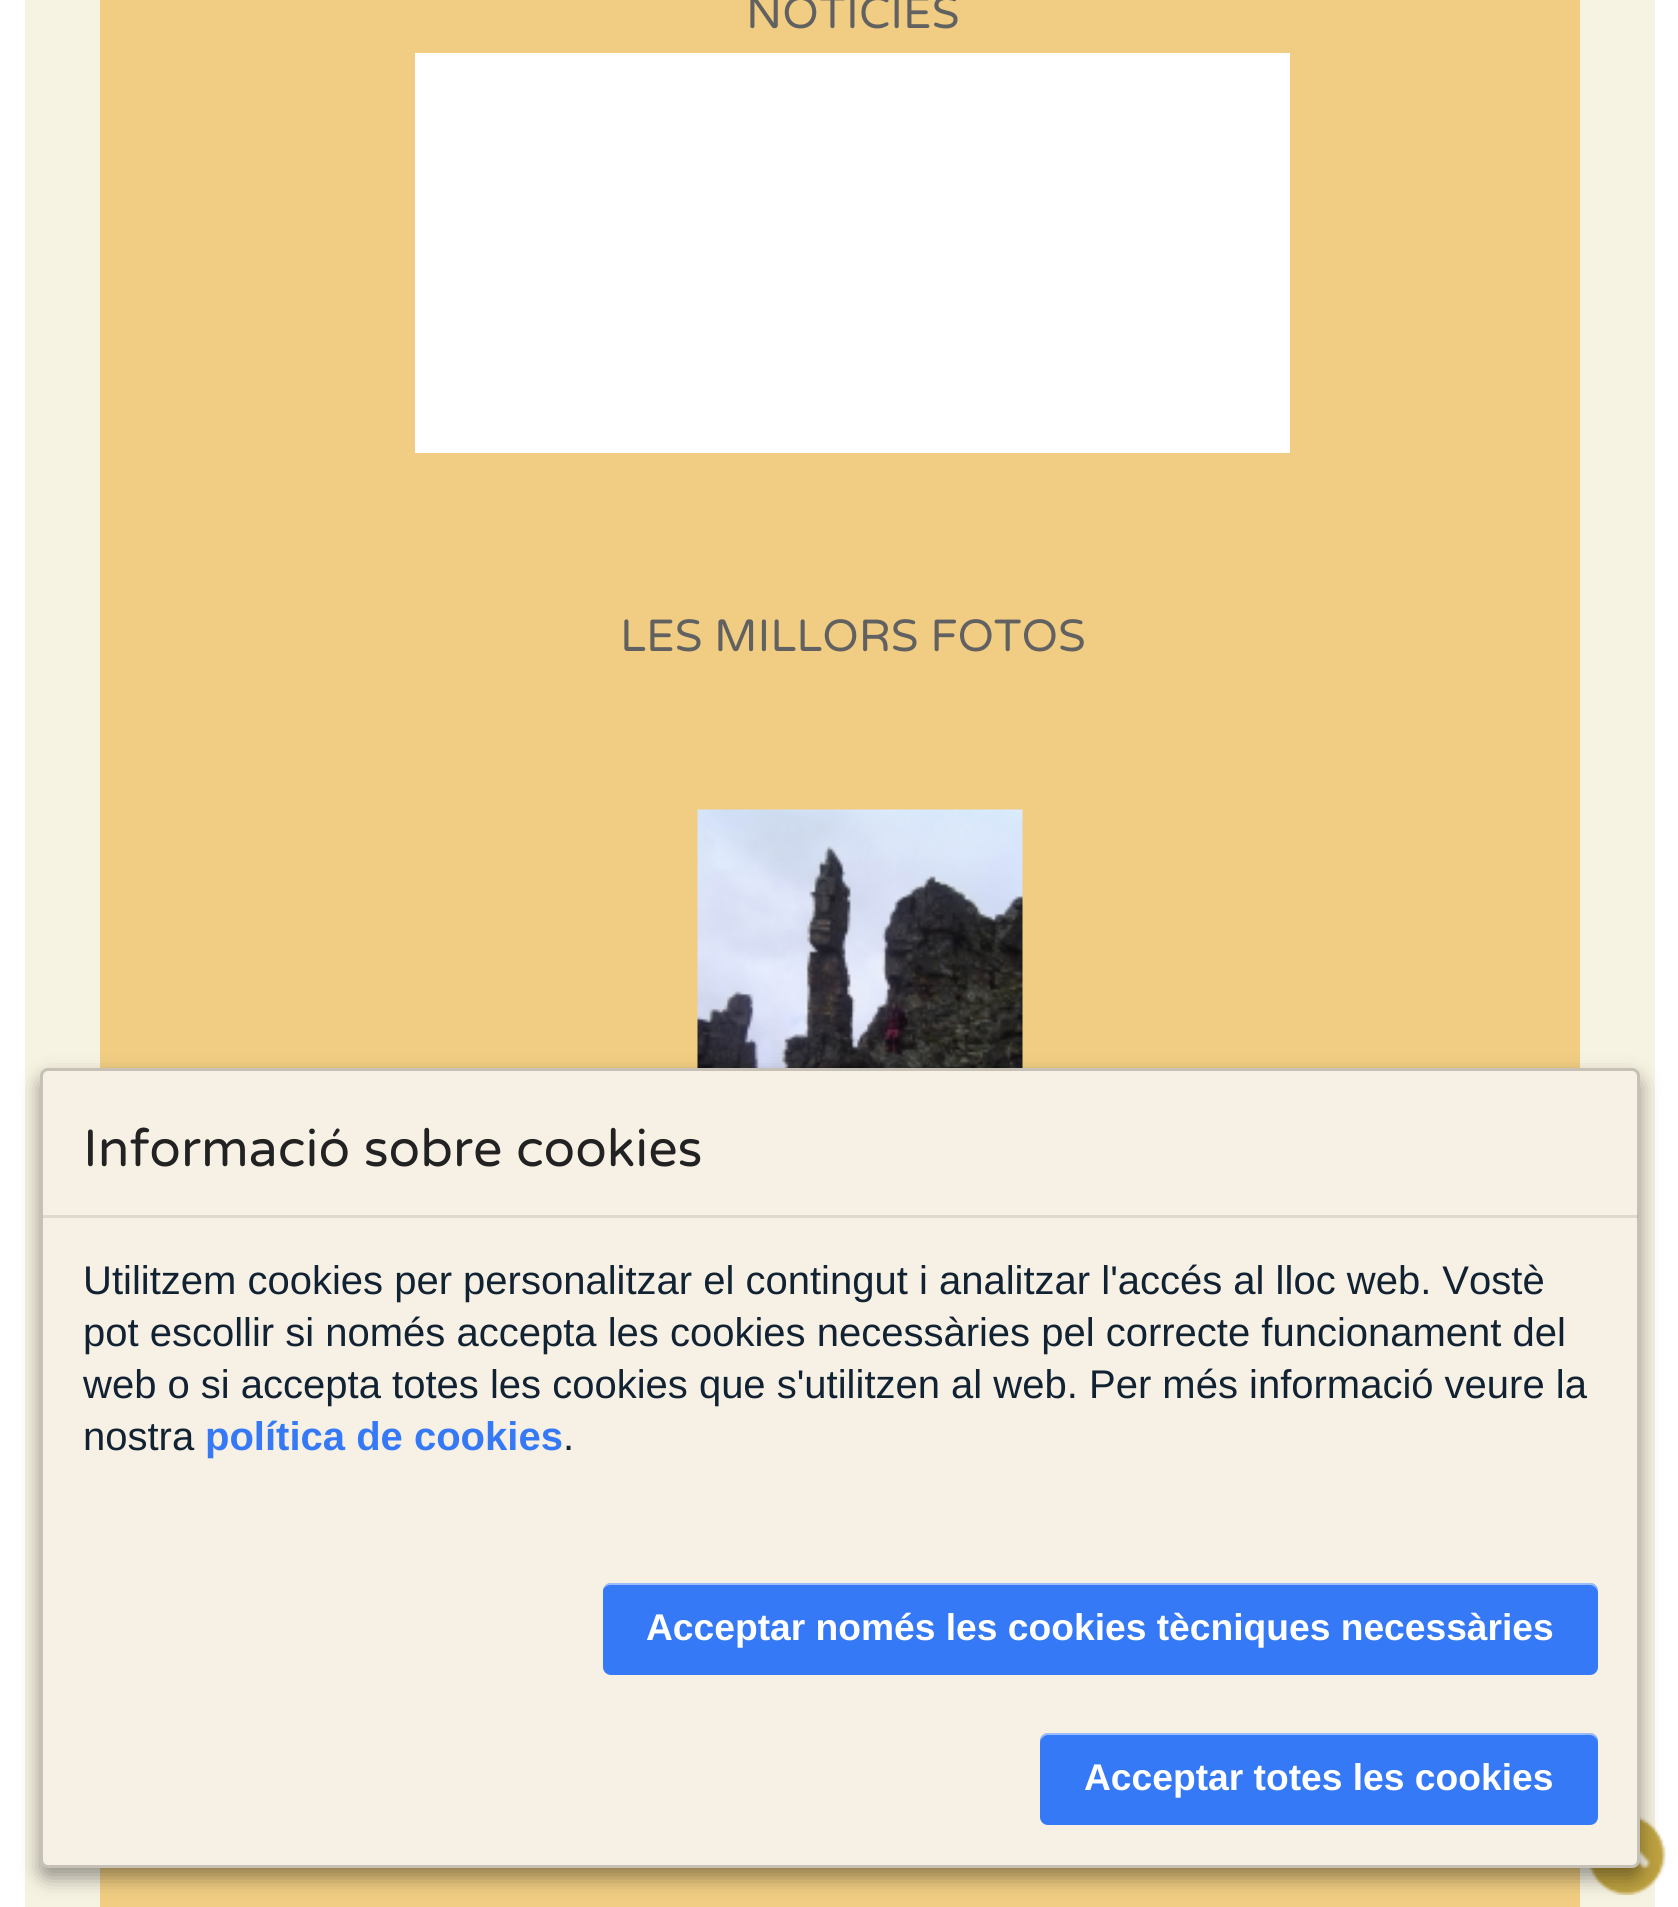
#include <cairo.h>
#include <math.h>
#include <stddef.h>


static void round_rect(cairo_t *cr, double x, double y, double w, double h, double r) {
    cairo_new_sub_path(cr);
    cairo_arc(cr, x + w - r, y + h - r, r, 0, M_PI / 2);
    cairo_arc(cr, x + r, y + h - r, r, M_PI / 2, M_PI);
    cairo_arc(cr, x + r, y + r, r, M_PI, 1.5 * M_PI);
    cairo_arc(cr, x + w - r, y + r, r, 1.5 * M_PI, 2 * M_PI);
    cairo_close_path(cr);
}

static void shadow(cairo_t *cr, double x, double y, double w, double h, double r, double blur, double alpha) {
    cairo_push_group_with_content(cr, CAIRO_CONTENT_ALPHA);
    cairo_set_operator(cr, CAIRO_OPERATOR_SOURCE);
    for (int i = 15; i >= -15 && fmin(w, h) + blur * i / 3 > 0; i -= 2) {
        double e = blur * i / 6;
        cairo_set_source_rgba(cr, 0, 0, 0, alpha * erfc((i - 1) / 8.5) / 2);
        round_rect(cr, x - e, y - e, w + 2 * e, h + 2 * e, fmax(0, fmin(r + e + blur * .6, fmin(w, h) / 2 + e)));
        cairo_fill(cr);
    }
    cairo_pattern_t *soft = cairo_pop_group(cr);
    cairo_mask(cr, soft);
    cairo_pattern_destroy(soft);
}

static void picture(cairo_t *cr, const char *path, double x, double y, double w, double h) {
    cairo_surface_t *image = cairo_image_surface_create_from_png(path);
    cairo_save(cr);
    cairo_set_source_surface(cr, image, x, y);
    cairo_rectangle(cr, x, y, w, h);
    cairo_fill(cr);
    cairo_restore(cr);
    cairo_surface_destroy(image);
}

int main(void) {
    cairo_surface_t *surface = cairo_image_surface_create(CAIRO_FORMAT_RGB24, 1678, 1907);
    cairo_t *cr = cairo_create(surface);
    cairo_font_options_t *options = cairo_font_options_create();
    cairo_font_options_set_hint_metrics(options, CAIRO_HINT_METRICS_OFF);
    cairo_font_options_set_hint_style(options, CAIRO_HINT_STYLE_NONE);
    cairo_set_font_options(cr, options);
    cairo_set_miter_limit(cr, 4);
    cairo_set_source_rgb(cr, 1, 1, 1);
    cairo_paint(cr);
    cairo_set_source_rgb(cr, 0.965, 0.953, 0.886);
    cairo_rectangle(cr, 25, 0, 1630, 1907);
    cairo_fill(cr);
    cairo_set_source_rgb(cr, 0.941, 0.804, 0.51);
    cairo_rectangle(cr, 100, 0, 1480, 1907);
    cairo_fill(cr);
    cairo_select_font_face(cr, "Varela Round", CAIRO_FONT_SLANT_NORMAL, CAIRO_FONT_WEIGHT_NORMAL);
    cairo_set_font_size(cr, 45);
    cairo_set_source_rgb(cr, 0.38, 0.38, 0.38);
    cairo_move_to(cr, 746, 28);
    cairo_show_text(cr, "NOTÍCIES");
    cairo_set_source_rgb(cr, 1, 1, 1);
    cairo_rectangle(cr, 415, 53, 875, 400);
    cairo_fill(cr);
    cairo_set_source_rgb(cr, 0.38, 0.38, 0.38);
    cairo_move_to(cr, 620, 651);
    cairo_show_text(cr, "LES MILLORS FOTOS");
    picture(cr, "img1.png", 697, 809, 326, 259);
    picture(cr, "img2.png", 1589, 1816, 77, 79);
    cairo_set_source_rgb(cr, 0, 0, 0);
    shadow(cr, 40, 1078, 1600, 800, 8, 10, 0.4);
    cairo_set_source_rgb(cr, 0.965, 0.941, 0.894);
    round_rect(cr, 40, 1068, 1600, 800, 8);
    cairo_fill(cr);
    round_rect(cr, 41.5, 1069.5, 1597, 797, 6.5);
    cairo_set_source_rgba(cr, 0, 0, 0, 0.2);
    cairo_set_line_width(cr, 3);
    cairo_stroke(cr);
    cairo_set_source_rgba(cr, 0, 0, 0, 0.1);
    cairo_rectangle(cr, 43, 1215, 1595, 3);
    cairo_fill(cr);
    cairo_set_font_size(cr, 52);
    cairo_set_source_rgb(cr, 0.133, 0.133, 0.133);
    cairo_move_to(cr, 83, 1166);
    cairo_show_text(cr, "Informació sobre cookies");
    cairo_select_font_face(cr, "Liberation Sans", CAIRO_FONT_SLANT_NORMAL, CAIRO_FONT_WEIGHT_NORMAL);
    cairo_set_font_size(cr, 40);
    cairo_set_source_rgb(cr, 0.067, 0.133, 0.2);
    cairo_move_to(cr, 83, 1294);
    cairo_show_text(cr, "Utilitzem cookies per personalitzar el contingut i analitzar l'accés al lloc web. Vostè");
    cairo_move_to(cr, 83, 1346);
    cairo_show_text(cr, "pot escollir si només accepta les cookies necessàries pel correcte funcionament del");
    cairo_move_to(cr, 83, 1398);
    cairo_show_text(cr, "web o si accepta totes les cookies que s'utilitzen al web. Per més informació veure la");
    cairo_move_to(cr, 83, 1450);
    cairo_show_text(cr, "nostra");
    cairo_select_font_face(cr, "Liberation Sans", CAIRO_FONT_SLANT_NORMAL, CAIRO_FONT_WEIGHT_BOLD);
    cairo_set_source_rgb(cr, 0.208, 0.475, 0.965);
    cairo_move_to(cr, 205, 1450);
    cairo_show_text(cr, "política de cookies");
    cairo_select_font_face(cr, "Liberation Sans", CAIRO_FONT_SLANT_NORMAL, CAIRO_FONT_WEIGHT_NORMAL);
    cairo_set_source_rgb(cr, 0.067, 0.133, 0.2);
    cairo_move_to(cr, 563, 1450);
    cairo_show_text(cr, ".");
    cairo_set_source_rgb(cr, 0.208, 0.475, 0.965);
    round_rect(cr, 603, 1583, 995, 92, 8);
    cairo_fill(cr);
    cairo_set_source_rgba(cr, 1, 1, 1, 0.5);
    cairo_new_path(cr);
    cairo_move_to(cr, 610, 1585);
    cairo_line_to(cr, 1590, 1585);
    cairo_curve_to(cr, 1594, 1585, 1598, 1589, 1598, 1593);
    cairo_line_to(cr, 1598, 1591);
    cairo_curve_to(cr, 1598, 1587, 1594, 1583, 1590, 1583);
    cairo_line_to(cr, 611, 1583);
    cairo_curve_to(cr, 607, 1583, 604, 1586, 603, 1589);
    cairo_curve_to(cr, 605, 1587, 607, 1585, 610, 1585);
    cairo_close_path(cr);
    cairo_fill(cr);
    cairo_select_font_face(cr, "Liberation Sans", CAIRO_FONT_SLANT_NORMAL, CAIRO_FONT_WEIGHT_BOLD);
    cairo_set_font_size(cr, 37.2);
    cairo_set_source_rgb(cr, 1, 1, 1);
    cairo_move_to(cr, 646, 1640);
    cairo_show_text(cr, "Acceptar només les cookies tècniques necessàries");
    cairo_set_source_rgb(cr, 0.208, 0.475, 0.965);
    round_rect(cr, 1040, 1733, 558, 92, 8);
    cairo_fill(cr);
    cairo_set_source_rgba(cr, 1, 1, 1, 0.5);
    cairo_new_path(cr);
    cairo_move_to(cr, 1048, 1735);
    cairo_line_to(cr, 1590, 1735);
    cairo_curve_to(cr, 1594, 1735, 1598, 1739, 1598, 1743);
    cairo_curve_to(cr, 1598, 1738, 1596, 1733, 1590, 1733);
    cairo_line_to(cr, 1048, 1733);
    cairo_curve_to(cr, 1042, 1733, 1040, 1738, 1040, 1743);
    cairo_curve_to(cr, 1040, 1739, 1044, 1735, 1048, 1735);
    cairo_close_path(cr);
    cairo_fill(cr);
    cairo_set_source_rgb(cr, 1, 1, 1);
    cairo_move_to(cr, 1084, 1790);
    cairo_show_text(cr, "Acceptar totes les cookies");
    cairo_surface_write_to_png(surface, "page.png");
    cairo_font_options_destroy(options);
    cairo_destroy(cr);
    cairo_surface_destroy(surface);
    return 0;
}
